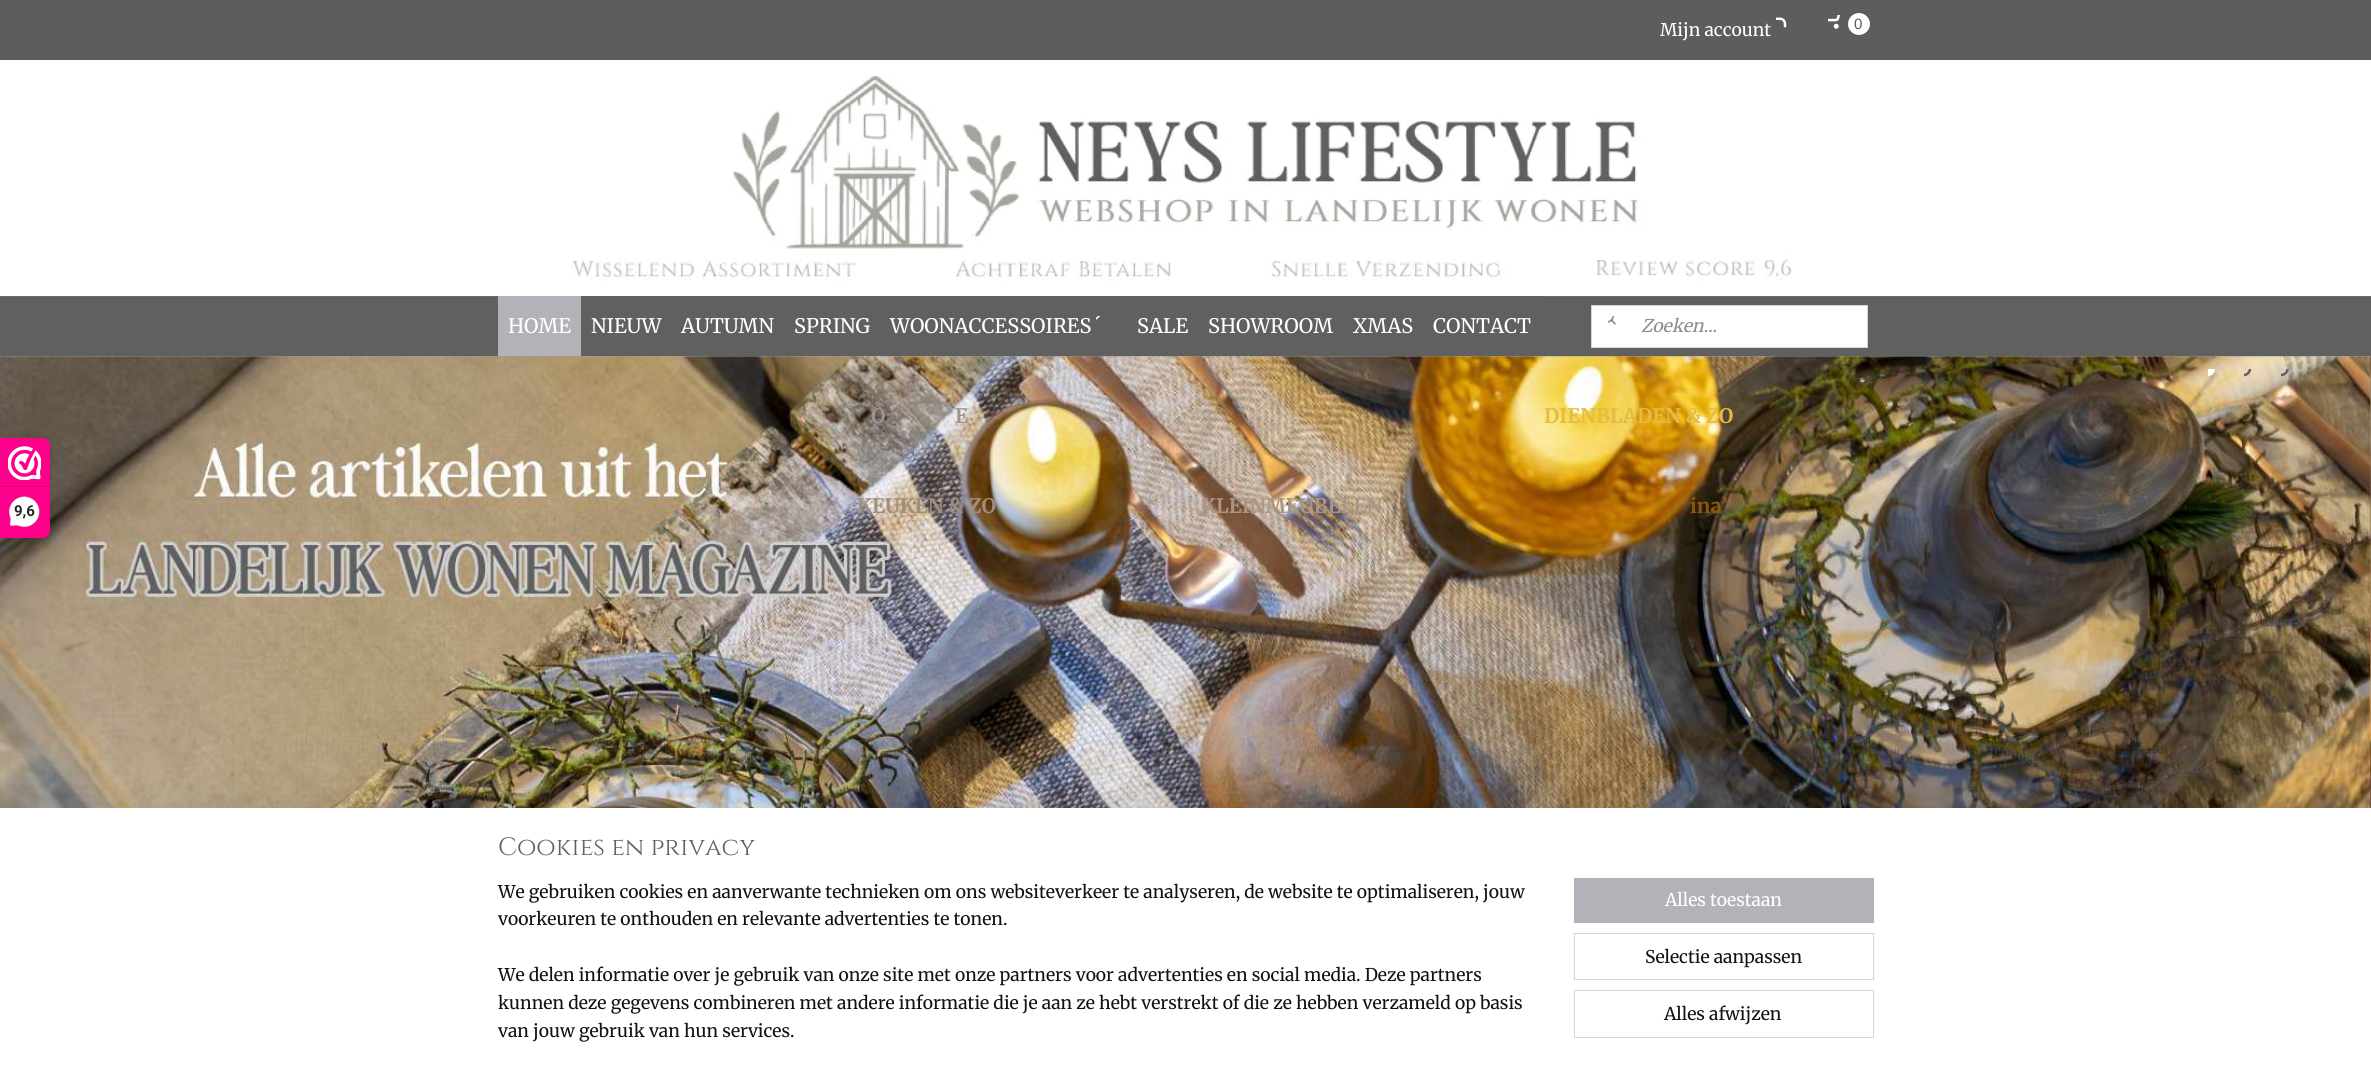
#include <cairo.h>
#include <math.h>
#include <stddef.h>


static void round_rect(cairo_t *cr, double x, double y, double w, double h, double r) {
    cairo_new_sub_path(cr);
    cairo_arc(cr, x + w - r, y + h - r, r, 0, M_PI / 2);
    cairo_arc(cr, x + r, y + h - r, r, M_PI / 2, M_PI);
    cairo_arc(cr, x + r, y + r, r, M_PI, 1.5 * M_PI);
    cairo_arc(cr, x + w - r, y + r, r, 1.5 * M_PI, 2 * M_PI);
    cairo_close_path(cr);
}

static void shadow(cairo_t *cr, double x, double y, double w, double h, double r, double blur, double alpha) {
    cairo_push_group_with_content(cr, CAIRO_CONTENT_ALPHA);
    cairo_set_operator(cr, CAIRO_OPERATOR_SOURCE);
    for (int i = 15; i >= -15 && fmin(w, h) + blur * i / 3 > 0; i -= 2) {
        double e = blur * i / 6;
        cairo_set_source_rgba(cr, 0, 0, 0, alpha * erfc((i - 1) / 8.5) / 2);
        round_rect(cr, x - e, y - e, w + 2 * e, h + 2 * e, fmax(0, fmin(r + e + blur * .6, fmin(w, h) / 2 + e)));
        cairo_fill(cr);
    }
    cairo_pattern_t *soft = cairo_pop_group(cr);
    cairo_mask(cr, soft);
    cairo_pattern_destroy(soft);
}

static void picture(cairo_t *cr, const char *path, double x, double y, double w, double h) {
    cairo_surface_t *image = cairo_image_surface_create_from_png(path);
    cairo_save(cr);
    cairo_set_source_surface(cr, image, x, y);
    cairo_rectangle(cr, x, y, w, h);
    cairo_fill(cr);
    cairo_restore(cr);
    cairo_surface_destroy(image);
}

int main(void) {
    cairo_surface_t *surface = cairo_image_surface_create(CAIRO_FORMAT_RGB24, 2371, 1074);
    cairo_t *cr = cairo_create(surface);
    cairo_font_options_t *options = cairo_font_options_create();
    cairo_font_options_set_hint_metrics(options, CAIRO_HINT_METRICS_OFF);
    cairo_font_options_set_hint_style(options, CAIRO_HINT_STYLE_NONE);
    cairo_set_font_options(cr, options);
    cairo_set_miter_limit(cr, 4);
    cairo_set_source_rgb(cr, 1, 1, 1);
    cairo_paint(cr);
    picture(cr, "img8.png", 0, 356, 2371, 1);
    picture(cr, "img9.png", 0, 356, 2371, 452);
    cairo_set_source_rgb(cr, 0, 0, 0);
    shadow(cr, 0, 440, 50, 100, 8, 6, 0.15);
    cairo_set_source_rgb(cr, 0.996, 0, 0.549);
    cairo_new_path(cr);
    cairo_move_to(cr, 0, 438);
    cairo_line_to(cr, 42, 438);
    cairo_curve_to(cr, 46.5, 438, 50, 441.5, 50, 446);
    cairo_line_to(cr, 50, 530);
    cairo_curve_to(cr, 50, 534.5, 46.5, 538, 42, 538);
    cairo_line_to(cr, 0, 538);
    cairo_close_path(cr);
    cairo_fill(cr);
    picture(cr, "img1.png", 8, 446, 33, 34);
    cairo_set_source_rgb(cr, 0.847, 0, 0.467);
    cairo_rectangle(cr, 0, 486, 49, 1);
    cairo_fill(cr);
    picture(cr, "img2.png", 9, 496, 31, 32);
    cairo_select_font_face(cr, "Roboto", CAIRO_FONT_SLANT_NORMAL, CAIRO_FONT_WEIGHT_BOLD);
    cairo_set_font_size(cr, 15);
    cairo_set_source_rgb(cr, 0.153, 0.149, 0.149);
    cairo_move_to(cr, 14, 516);
    cairo_show_text(cr, "9,6");
    cairo_set_source_rgb(cr, 0.361, 0.365, 0.373);
    cairo_rectangle(cr, 0, 0, 2371, 60);
    cairo_fill(cr);
    cairo_select_font_face(cr, "Merriweather", CAIRO_FONT_SLANT_NORMAL, CAIRO_FONT_WEIGHT_NORMAL);
    cairo_set_font_size(cr, 17.5);
    cairo_set_source_rgb(cr, 1, 1, 1);
    cairo_move_to(cr, 1660, 36);
    cairo_show_text(cr, "Mijn account");
    picture(cr, "img3.png", 1776, 17, 11, 11);
    picture(cr, "img4.png", 1828, 15, 12, 14);
    cairo_arc(cr, 1858.5, 23.5, 12, 0, 2 * M_PI);
    cairo_set_source_rgb(cr, 0.341, 0.357, 0.384);
    cairo_set_line_width(cr, 1);
    cairo_stroke(cr);
    cairo_set_source_rgb(cr, 1, 1, 1);
    cairo_arc(cr, 1859, 24, 11, 0, 2 * M_PI);
    cairo_fill(cr);
    cairo_select_font_face(cr, "Liberation Sans", CAIRO_FONT_SLANT_NORMAL, CAIRO_FONT_WEIGHT_NORMAL);
    cairo_set_font_size(cr, 15);
    cairo_set_source_rgb(cr, 0.341, 0.357, 0.384);
    cairo_move_to(cr, 1854, 29);
    cairo_show_text(cr, "0");
    cairo_set_source_rgb(cr, 0.376, 0.376, 0.376);
    cairo_rectangle(cr, 0, 296, 2371, 60);
    cairo_fill(cr);
    picture(cr, "img5.png", 0, 60, 2371, 237);
    cairo_select_font_face(cr, "Merriweather", CAIRO_FONT_SLANT_NORMAL, CAIRO_FONT_WEIGHT_NORMAL);
    cairo_set_font_size(cr, 20);
    cairo_set_source_rgb(cr, 1, 1, 1);
    cairo_move_to(cr, 890, 333);
    cairo_show_text(cr, "WOONACCESSOIRES");
    picture(cr, "img6.png", 1096, 316, 4, 4);
    cairo_select_font_face(cr, "Merriweather", CAIRO_FONT_SLANT_NORMAL, CAIRO_FONT_WEIGHT_BOLD);
    cairo_set_source_rgb(cr, 0.616, 0.58, 0.549);
    cairo_move_to(cr, 871, 423);
    cairo_show_text(cr, "O");
    cairo_move_to(cr, 955, 423);
    cairo_show_text(cr, "E");
    cairo_set_source_rgb(cr, 0.886, 0.737, 0.267);
    cairo_move_to(cr, 1544, 423);
    cairo_show_text(cr, "DIENBLADEN & ZO");
    cairo_set_source_rgb(cr, 0.62, 0.557, 0.502);
    cairo_move_to(cr, 857, 513);
    cairo_show_text(cr, "KEUKEN & ZO");
    cairo_set_source_rgb(cr, 0.667, 0.584, 0.518);
    cairo_move_to(cr, 1201, 513);
    cairo_show_text(cr, "KLEINMEUBELEN");
    cairo_set_source_rgb(cr, 0.553, 0.337, 0.043);
    cairo_move_to(cr, 1690, 513);
    cairo_show_text(cr, "ina’");
    cairo_set_source_rgb(cr, 0.694, 0.702, 0.722);
    cairo_rectangle(cr, 498, 296, 83, 60);
    cairo_fill(cr);
    cairo_select_font_face(cr, "Merriweather", CAIRO_FONT_SLANT_NORMAL, CAIRO_FONT_WEIGHT_NORMAL);
    cairo_set_source_rgb(cr, 1, 1, 1);
    cairo_move_to(cr, 508, 333);
    cairo_show_text(cr, "HOME");
    cairo_set_source_rgb(cr, 0.376, 0.376, 0.376);
    cairo_rectangle(cr, 581, 296, 960, 1);
    cairo_fill(cr);
    cairo_set_source_rgb(cr, 1, 1, 1);
    cairo_move_to(cr, 591, 333);
    cairo_show_text(cr, "NIEUW");
    cairo_move_to(cr, 681, 333);
    cairo_show_text(cr, "AUTUMN");
    cairo_move_to(cr, 794, 333);
    cairo_show_text(cr, "SPRING");
    cairo_move_to(cr, 1137, 333);
    cairo_show_text(cr, "SALE");
    cairo_move_to(cr, 1208, 333);
    cairo_show_text(cr, "SHOWROOM");
    cairo_move_to(cr, 1353, 333);
    cairo_show_text(cr, "XMAS");
    cairo_move_to(cr, 1433, 333);
    cairo_show_text(cr, "CONTACT");
    cairo_rectangle(cr, 1591.5, 305.5, 276, 42);
    cairo_fill_preserve(cr);
    cairo_set_source_rgb(cr, 0.827, 0.835, 0.851);
    cairo_stroke(cr);
    picture(cr, "img7.png", 1608, 316, 8, 9);
    cairo_select_font_face(cr, "Merriweather", CAIRO_FONT_SLANT_ITALIC, CAIRO_FONT_WEIGHT_NORMAL);
    cairo_set_font_size(cr, 17.5);
    cairo_set_source_rgb(cr, 0.537, 0.549, 0.569);
    cairo_move_to(cr, 1641, 332);
    cairo_show_text(cr, "Zoeken...");
    picture(cr, "img10.png", 2208, 369, 7, 8);
    picture(cr, "img11.png", 2244, 369, 8, 8);
    picture(cr, "img12.png", 2281, 369, 8, 8);
    picture(cr, "img13.png", 2318, 369, 7, 8);
    cairo_set_source_rgb(cr, 0, 0, 0);
    shadow(cr, 13, 820, 2346, 243, 0, 22.5, 0.2);
    cairo_set_source_rgb(cr, 1, 1, 1);
    cairo_rectangle(cr, 0, 808, 2371, 266);
    cairo_fill(cr);
    cairo_select_font_face(cr, "Cinzel", CAIRO_FONT_SLANT_NORMAL, CAIRO_FONT_WEIGHT_NORMAL);
    cairo_set_font_size(cr, 25);
    cairo_set_source_rgb(cr, 0.376, 0.376, 0.376);
    cairo_move_to(cr, 498, 855);
    cairo_show_text(cr, "Cookies en privacy");
    cairo_select_font_face(cr, "Merriweather", CAIRO_FONT_SLANT_NORMAL, CAIRO_FONT_WEIGHT_NORMAL);
    cairo_set_font_size(cr, 17.5);
    cairo_set_source_rgb(cr, 0.071, 0.071, 0.071);
    cairo_move_to(cr, 498, 898);
    cairo_show_text(cr, "We gebruiken cookies en aanverwante technieken om ons websiteverkeer te analyseren, de website te optimaliseren, jouw");
    cairo_move_to(cr, 498, 925);
    cairo_show_text(cr, "voorkeuren te onthouden en relevante advertenties te tonen.");
    cairo_move_to(cr, 498, 981);
    cairo_show_text(cr, "We delen informatie over je gebruik van onze site met onze partners voor advertenties en social media. Deze partners");
    cairo_move_to(cr, 498, 1009);
    cairo_show_text(cr, "kunnen deze gegevens combineren met andere informatie die je aan ze hebt verstrekt of die ze hebben verzameld op basis");
    cairo_move_to(cr, 498, 1037);
    cairo_show_text(cr, "van jouw gebruik van hun services.");
    cairo_set_source_rgb(cr, 0.694, 0.702, 0.722);
    cairo_rectangle(cr, 1574, 878, 300, 45);
    cairo_fill(cr);
    cairo_set_source_rgb(cr, 1, 1, 1);
    cairo_move_to(cr, 1665, 906);
    cairo_show_text(cr, "Alles toestaan");
    cairo_rectangle(cr, 1574.5, 933.5, 299, 46);
    cairo_set_source_rgb(cr, 0.839, 0.839, 0.839);
    cairo_stroke(cr);
    cairo_set_source_rgb(cr, 0.071, 0.071, 0.071);
    cairo_move_to(cr, 1645, 963);
    cairo_show_text(cr, "Selectie aanpassen");
    cairo_rectangle(cr, 1574.5, 990.5, 299, 47);
    cairo_set_source_rgb(cr, 0.839, 0.839, 0.839);
    cairo_stroke(cr);
    cairo_set_source_rgb(cr, 0.071, 0.071, 0.071);
    cairo_move_to(cr, 1664, 1020);
    cairo_show_text(cr, "Alles afwijzen");
    cairo_surface_write_to_png(surface, "page.png");
    cairo_font_options_destroy(options);
    cairo_destroy(cr);
    cairo_surface_destroy(surface);
    return 0;
}
